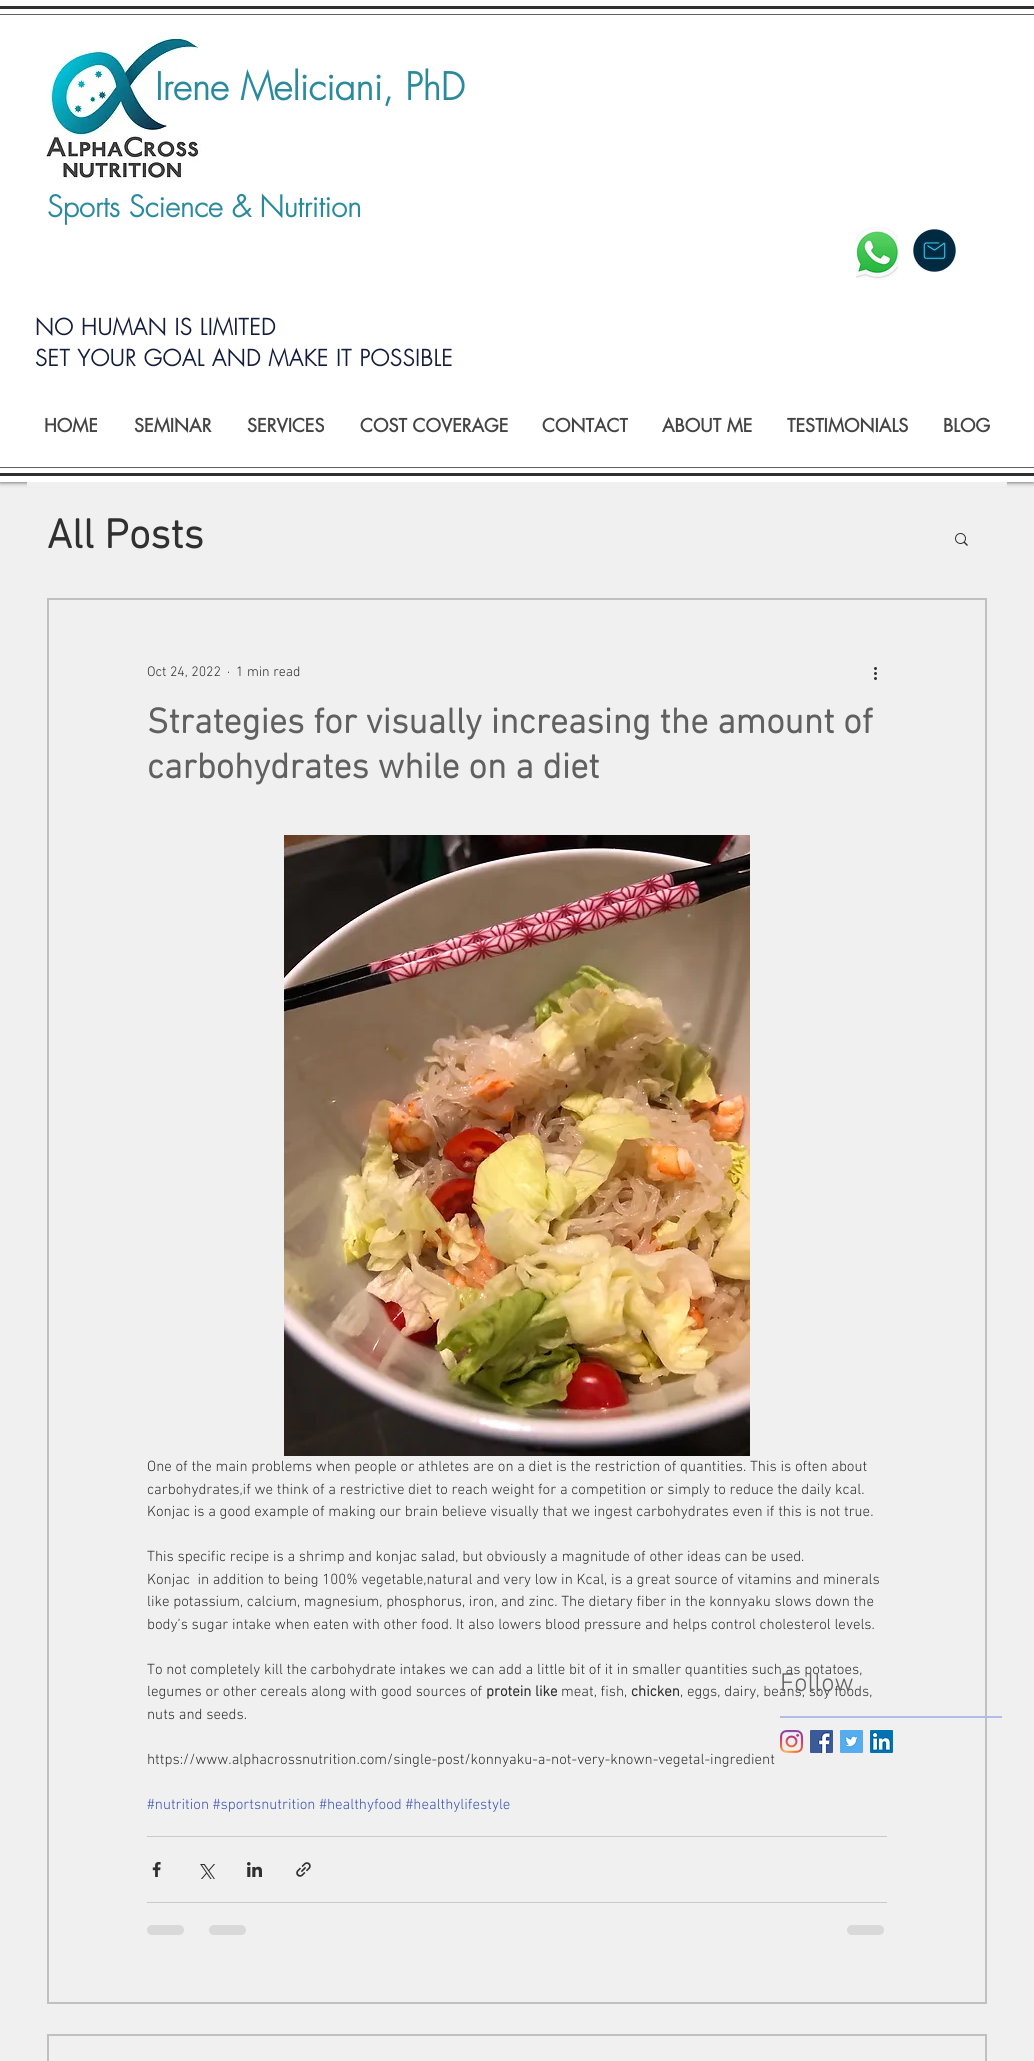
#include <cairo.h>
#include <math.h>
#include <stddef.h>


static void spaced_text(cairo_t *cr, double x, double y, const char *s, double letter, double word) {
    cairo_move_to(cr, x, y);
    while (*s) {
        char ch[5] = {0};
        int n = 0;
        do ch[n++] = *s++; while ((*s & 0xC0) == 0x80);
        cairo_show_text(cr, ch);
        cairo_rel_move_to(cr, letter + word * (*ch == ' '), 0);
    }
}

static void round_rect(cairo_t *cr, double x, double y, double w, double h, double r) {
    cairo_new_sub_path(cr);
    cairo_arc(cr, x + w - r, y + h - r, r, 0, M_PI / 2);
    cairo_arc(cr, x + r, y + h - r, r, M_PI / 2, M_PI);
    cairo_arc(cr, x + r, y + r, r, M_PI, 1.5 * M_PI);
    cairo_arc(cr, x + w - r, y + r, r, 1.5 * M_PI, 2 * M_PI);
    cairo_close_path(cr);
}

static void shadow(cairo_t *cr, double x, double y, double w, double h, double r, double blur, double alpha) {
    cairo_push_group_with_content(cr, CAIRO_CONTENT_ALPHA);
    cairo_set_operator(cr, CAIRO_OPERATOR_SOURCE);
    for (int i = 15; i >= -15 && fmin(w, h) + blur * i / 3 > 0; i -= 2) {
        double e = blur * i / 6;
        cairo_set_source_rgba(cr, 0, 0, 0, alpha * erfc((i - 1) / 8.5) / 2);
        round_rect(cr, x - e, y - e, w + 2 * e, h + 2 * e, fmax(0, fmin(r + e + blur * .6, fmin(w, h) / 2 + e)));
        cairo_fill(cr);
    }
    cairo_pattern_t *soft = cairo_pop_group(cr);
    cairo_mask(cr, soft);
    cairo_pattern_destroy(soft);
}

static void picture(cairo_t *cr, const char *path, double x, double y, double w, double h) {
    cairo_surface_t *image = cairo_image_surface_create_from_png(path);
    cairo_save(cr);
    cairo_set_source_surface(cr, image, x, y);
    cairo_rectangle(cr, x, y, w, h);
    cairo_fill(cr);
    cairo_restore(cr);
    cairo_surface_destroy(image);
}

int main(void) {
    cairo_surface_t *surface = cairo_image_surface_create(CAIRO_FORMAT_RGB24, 1034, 2061);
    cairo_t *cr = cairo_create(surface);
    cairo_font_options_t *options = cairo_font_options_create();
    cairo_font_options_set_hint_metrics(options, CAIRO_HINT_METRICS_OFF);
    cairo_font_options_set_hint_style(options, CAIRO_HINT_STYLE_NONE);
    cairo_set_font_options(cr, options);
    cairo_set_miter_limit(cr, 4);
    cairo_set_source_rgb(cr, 0.941, 0.941, 0.941);
    cairo_paint(cr);
    cairo_set_source_rgb(cr, 0, 0, 0);
    shadow(cr, 0, 0, 1034, 482, 0, 2.5, 0.7);
    cairo_set_source_rgb(cr, 1, 1, 1);
    cairo_rectangle(cr, 0, 0, 1034, 482);
    cairo_fill(cr);
    cairo_set_source_rgb(cr, 0.188, 0.188, 0.188);
    cairo_rectangle(cr, 0, 6, 1034, 3);
    cairo_fill(cr);
    cairo_rectangle(cr, 0, 473, 1034, 3);
    cairo_fill(cr);
    cairo_set_source_rgb(cr, 0.376, 0.376, 0.376);
    cairo_rectangle(cr, 0, 14, 1034, 1);
    cairo_fill(cr);
    cairo_rectangle(cr, 0, 467, 1034, 1);
    cairo_fill(cr);
    picture(cr, "img1.png", 46, 35, 155, 144);
    cairo_select_font_face(cr, "futura", CAIRO_FONT_SLANT_NORMAL, CAIRO_FONT_WEIGHT_BOLD);
    cairo_set_font_size(cr, 37);
    cairo_set_source_rgb(cr, 0.165, 0.541, 0.616);
    cairo_move_to(cr, 155, 100);
    cairo_show_text(cr, "Irene Meliciani, PhD");
    cairo_set_font_size(cr, 29);
    cairo_move_to(cr, 47, 217);
    cairo_show_text(cr, "Sports Science & Nutrition");
    picture(cr, "img2.png", 856, 227, 42, 53);
    picture(cr, "img3.png", 913, 229, 43, 43);
    cairo_set_font_size(cr, 22);
    cairo_set_source_rgb(cr, 0.075, 0.11, 0.235);
    spaced_text(cr, 35, 335, "NO HUMAN IS LIMITED", 0.65, 0);
    spaced_text(cr, 35, 366, "SET YOUR GOAL AND MAKE IT POSSIBLE", 0.65, 0);
    cairo_select_font_face(cr, "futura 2", CAIRO_FONT_SLANT_NORMAL, CAIRO_FONT_WEIGHT_BOLD);
    cairo_set_font_size(cr, 18);
    cairo_set_source_rgb(cr, 0.267, 0.267, 0.267);
    cairo_move_to(cr, 44, 432);
    cairo_show_text(cr, "HOME");
    cairo_move_to(cr, 134, 432);
    cairo_show_text(cr, "SEMINAR");
    cairo_move_to(cr, 247, 432);
    cairo_show_text(cr, "SERVICES");
    cairo_move_to(cr, 360, 432);
    cairo_show_text(cr, "COST COVERAGE");
    cairo_move_to(cr, 542, 432);
    cairo_show_text(cr, "CONTACT");
    cairo_move_to(cr, 662, 432);
    cairo_show_text(cr, "ABOUT ME");
    cairo_move_to(cr, 787, 432);
    cairo_show_text(cr, "TESTIMONIALS");
    cairo_move_to(cr, 943, 432);
    cairo_show_text(cr, "BLOG");
    cairo_set_source_rgb(cr, 0.941, 0.941, 0.941);
    cairo_rectangle(cr, 27, 482, 980, 5);
    cairo_fill(cr);
    cairo_select_font_face(cr, "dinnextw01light", CAIRO_FONT_SLANT_NORMAL, CAIRO_FONT_WEIGHT_BOLD);
    cairo_set_font_size(cr, 42);
    cairo_set_source_rgb(cr, 0.188, 0.188, 0.188);
    cairo_move_to(cr, 47, 548);
    cairo_show_text(cr, "All Posts");
    picture(cr, "img4.png", 955, 533, 13, 13);
    cairo_rectangle(cr, 48, 599, 938, 1404);
    cairo_set_source_rgb(cr, 0.753, 0.753, 0.753);
    cairo_stroke(cr);
    cairo_select_font_face(cr, "dinnextw01light Light", CAIRO_FONT_SLANT_NORMAL, CAIRO_FONT_WEIGHT_NORMAL);
    cairo_set_font_size(cr, 14);
    cairo_set_source_rgb(cr, 0.188, 0.188, 0.188);
    cairo_move_to(cr, 147, 676);
    cairo_show_text(cr, "Oct 24, 2022");
    cairo_move_to(cr, 227, 676);
    cairo_show_text(cr, "·");
    cairo_move_to(cr, 236, 676);
    cairo_show_text(cr, "1 min read");
    picture(cr, "img5.png", 874, 667, 3, 13);
    cairo_select_font_face(cr, "dinnextw01light", CAIRO_FONT_SLANT_NORMAL, CAIRO_FONT_WEIGHT_BOLD);
    cairo_set_font_size(cr, 36);
    cairo_set_source_rgb(cr, 0.376, 0.376, 0.376);
    cairo_move_to(cr, 147, 733);
    cairo_show_text(cr, "Strategies for visually increasing the amount of");
    cairo_move_to(cr, 147, 778);
    cairo_show_text(cr, "carbohydrates while on a diet");
    picture(cr, "img6.png", 284, 835, 466, 621);
    cairo_select_font_face(cr, "dinnextw01light Light", CAIRO_FONT_SLANT_NORMAL, CAIRO_FONT_WEIGHT_NORMAL);
    cairo_set_font_size(cr, 15);
    cairo_set_source_rgb(cr, 0.188, 0.188, 0.188);
    cairo_move_to(cr, 147, 1471);
    cairo_show_text(cr, "One of the main problems when people or athletes are on a diet is the restriction of quantities. This is often about");
    cairo_move_to(cr, 147, 1494);
    cairo_show_text(cr, "carbohydrates,if we think of a restrictive diet to reach weight for a competition or simply to reduce the daily kcal.");
    cairo_move_to(cr, 147, 1516);
    cairo_show_text(cr, "Konjac is a good example of making our brain believe visually that we ingest carbohydrates even if this is not true.");
    cairo_move_to(cr, 147, 1561);
    cairo_show_text(cr, "This specific recipe is a shrimp and konjac salad, but obviously a magnitude of other ideas can be used.");
    cairo_move_to(cr, 147, 1584);
    cairo_show_text(cr, "Konjac  in addition to being 100% vegetable,natural and very low in Kcal, is a great source of vitamins and minerals");
    cairo_move_to(cr, 147, 1606);
    cairo_show_text(cr, "like potassium, calcium, magnesium, phosphorus, iron, and zinc. The dietary fiber in the konnyaku slows down the");
    cairo_move_to(cr, 147, 1629);
    cairo_show_text(cr, "body’s sugar intake when eaten with other food. It also lowers blood pressure and helps control cholesterol levels.");
    cairo_move_to(cr, 147, 1674);
    cairo_show_text(cr, "To not completely kill the carbohydrate intakes we can add a little bit of it in smaller quantities such as potatoes,");
    cairo_move_to(cr, 147, 1696);
    cairo_show_text(cr, "legumes or other cereals along with good sources of");
    cairo_select_font_face(cr, "dinnextw01light", CAIRO_FONT_SLANT_NORMAL, CAIRO_FONT_WEIGHT_BOLD);
    cairo_move_to(cr, 486, 1696);
    cairo_show_text(cr, "protein like");
    cairo_select_font_face(cr, "dinnextw01light Light", CAIRO_FONT_SLANT_NORMAL, CAIRO_FONT_WEIGHT_NORMAL);
    cairo_move_to(cr, 561, 1696);
    cairo_show_text(cr, "meat, fish,");
    cairo_select_font_face(cr, "dinnextw01light", CAIRO_FONT_SLANT_NORMAL, CAIRO_FONT_WEIGHT_BOLD);
    cairo_move_to(cr, 631, 1696);
    cairo_show_text(cr, "chicken");
    cairo_select_font_face(cr, "dinnextw01light Light", CAIRO_FONT_SLANT_NORMAL, CAIRO_FONT_WEIGHT_NORMAL);
    cairo_move_to(cr, 680, 1696);
    cairo_show_text(cr, ", eggs, dairy, beans, soy foods,");
    cairo_move_to(cr, 147, 1719);
    cairo_show_text(cr, "nuts and seeds.");
    cairo_move_to(cr, 147, 1764);
    cairo_show_text(cr, "https://www.alphacrossnutrition.com/single-post/konnyaku-a-not-very-known-vegetal-ingredient");
    cairo_set_source_rgb(cr, 0.227, 0.329, 0.706);
    cairo_move_to(cr, 147, 1809);
    cairo_show_text(cr, "#nutrition #sportsnutrition #healthyfood #healthylifestyle");
    cairo_set_source_rgb(cr, 0.792, 0.792, 0.792);
    cairo_rectangle(cr, 147, 1836, 740, 1);
    cairo_fill(cr);
    picture(cr, "img7.png", 152, 1862, 9, 15);
    picture(cr, "img8.png", 200, 1864, 15, 15);
    picture(cr, "img9.png", 247, 1862, 15, 15);
    picture(cr, "img10.png", 296, 1862, 15, 15);
    cairo_rectangle(cr, 147, 1902, 740, 1);
    cairo_fill(cr);
    cairo_set_source_rgb(cr, 0.851, 0.851, 0.851);
    round_rect(cr, 147, 1925, 37, 10, 5);
    cairo_fill(cr);
    round_rect(cr, 209, 1925, 37, 10, 5);
    cairo_fill(cr);
    round_rect(cr, 847, 1925, 37, 10, 5);
    cairo_fill(cr);
    cairo_rectangle(cr, 48, 2035, 938, 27);
    cairo_set_source_rgb(cr, 0.753, 0.753, 0.753);
    cairo_stroke(cr);
    cairo_set_font_size(cr, 26);
    cairo_set_source_rgb(cr, 0.376, 0.376, 0.376);
    cairo_move_to(cr, 780, 1691);
    cairo_show_text(cr, "Follow");
    cairo_set_source_rgb(cr, 0.698, 0.741, 0.902);
    cairo_rectangle(cr, 780, 1716, 222, 2);
    cairo_fill(cr);
    picture(cr, "img11.png", 780, 1730, 23, 23);
    picture(cr, "img12.png", 810, 1730, 23, 23);
    picture(cr, "img13.png", 840, 1730, 23, 23);
    picture(cr, "img14.png", 870, 1730, 23, 23);
    cairo_surface_write_to_png(surface, "page.png");
    cairo_font_options_destroy(options);
    cairo_destroy(cr);
    cairo_surface_destroy(surface);
    return 0;
}
